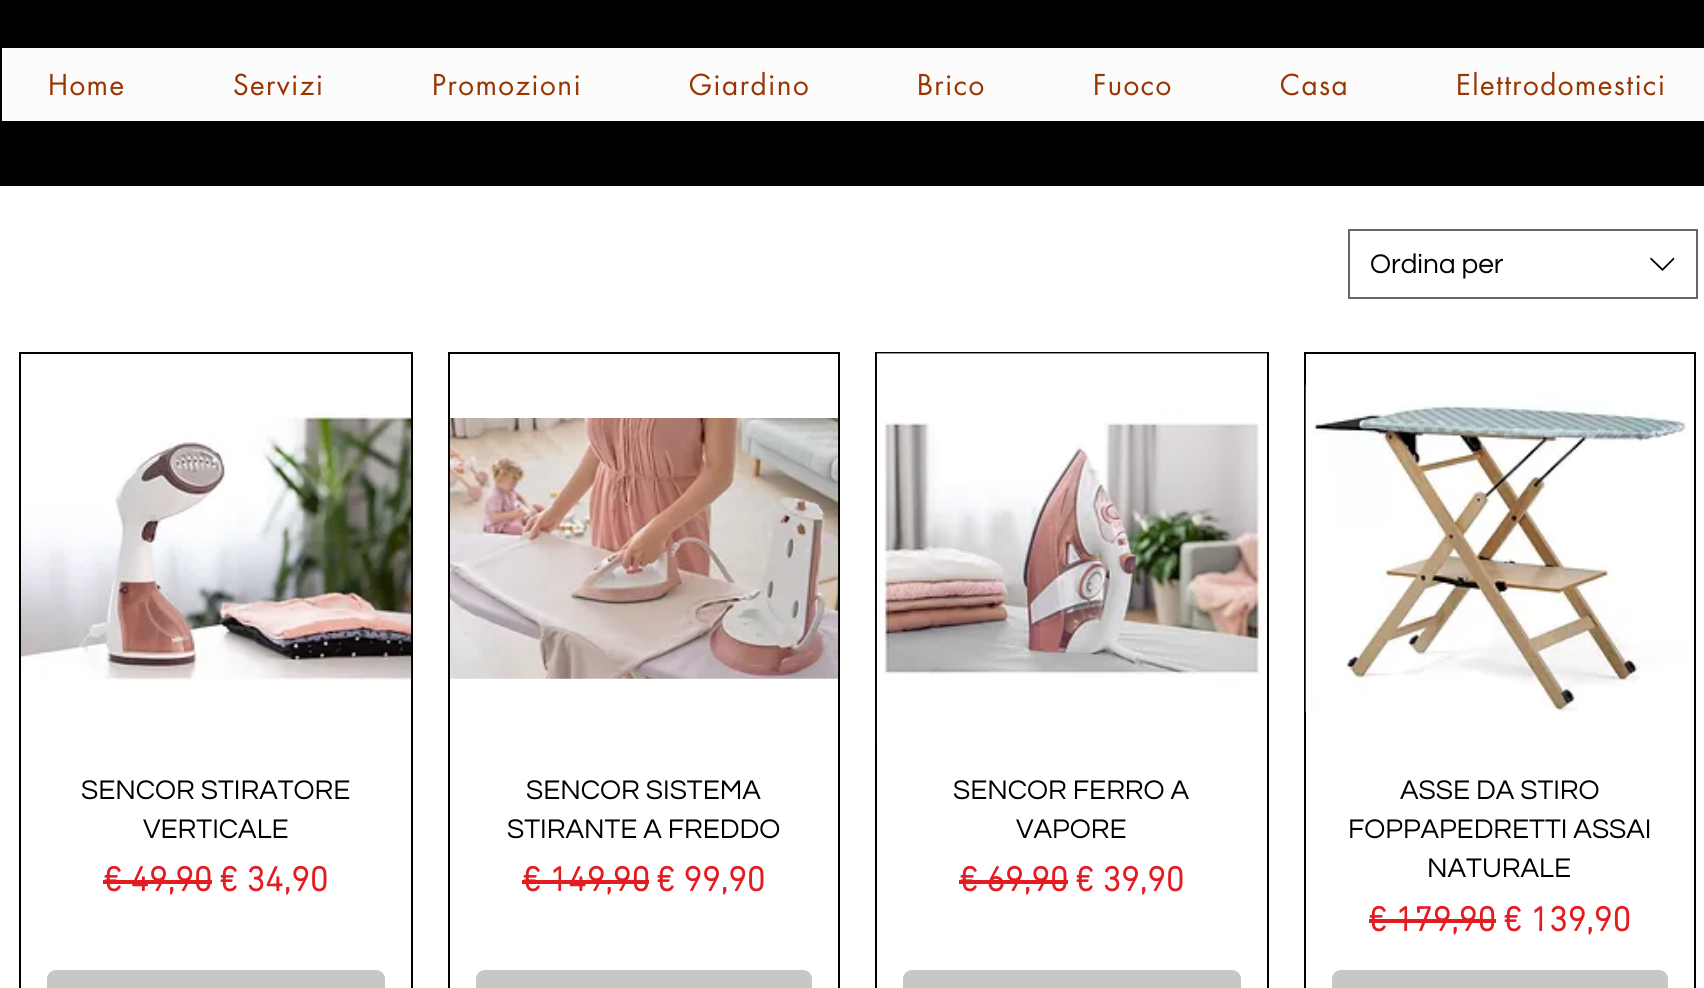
#include <cairo.h>
#include <math.h>
#include <stddef.h>


static void spaced_text(cairo_t *cr, double x, double y, const char *s, double letter, double word) {
    cairo_move_to(cr, x, y);
    while (*s) {
        char ch[5] = {0};
        int n = 0;
        do ch[n++] = *s++; while ((*s & 0xC0) == 0x80);
        cairo_show_text(cr, ch);
        cairo_rel_move_to(cr, letter + word * (*ch == ' '), 0);
    }
}

static void round_rect(cairo_t *cr, double x, double y, double w, double h, double r) {
    cairo_new_sub_path(cr);
    cairo_arc(cr, x + w - r, y + h - r, r, 0, M_PI / 2);
    cairo_arc(cr, x + r, y + h - r, r, M_PI / 2, M_PI);
    cairo_arc(cr, x + r, y + r, r, M_PI, 1.5 * M_PI);
    cairo_arc(cr, x + w - r, y + r, r, 1.5 * M_PI, 2 * M_PI);
    cairo_close_path(cr);
}

static void picture(cairo_t *cr, const char *path, double x, double y, double w, double h) {
    cairo_surface_t *image = cairo_image_surface_create_from_png(path);
    cairo_save(cr);
    cairo_set_source_surface(cr, image, x, y);
    cairo_rectangle(cr, x, y, w, h);
    cairo_fill(cr);
    cairo_restore(cr);
    cairo_surface_destroy(image);
}

int main(void) {
    cairo_surface_t *surface = cairo_image_surface_create(CAIRO_FORMAT_RGB24, 1704, 988);
    cairo_t *cr = cairo_create(surface);
    cairo_font_options_t *options = cairo_font_options_create();
    cairo_font_options_set_hint_metrics(options, CAIRO_HINT_METRICS_OFF);
    cairo_font_options_set_hint_style(options, CAIRO_HINT_STYLE_NONE);
    cairo_set_font_options(cr, options);
    cairo_set_miter_limit(cr, 4);
    cairo_set_source_rgb(cr, 0, 0, 0);
    cairo_paint(cr);
    cairo_set_source_rgb(cr, 0.988, 0.988, 0.988);
    cairo_rectangle(cr, 2, 48, 1702, 73);
    cairo_fill(cr);
    cairo_select_font_face(cr, "futura", CAIRO_FONT_SLANT_NORMAL, CAIRO_FONT_WEIGHT_NORMAL);
    cairo_set_font_size(cr, 28);
    cairo_set_source_rgb(cr, 0.6, 0.208, 0);
    spaced_text(cr, 48, 95, "Home", 1.4, 0);
    spaced_text(cr, 233, 95, "Servizi", 1.4, 0);
    spaced_text(cr, 432, 95, "Promozioni", 1.4, 0);
    spaced_text(cr, 689, 95, "Giardino", 1.4, 0);
    spaced_text(cr, 917, 95, "Brico", 1.4, 0);
    spaced_text(cr, 1093, 95, "Fuoco", 1.4, 0);
    spaced_text(cr, 1280, 95, "Casa", 1.4, 0);
    spaced_text(cr, 1456, 95, "Elettrodomestici", 1.4, 0);
    cairo_set_source_rgb(cr, 1, 1, 1);
    cairo_rectangle(cr, 0, 186, 1704, 802);
    cairo_fill(cr);
    cairo_rectangle(cr, 1349, 230, 348, 68);
    cairo_set_source_rgb(cr, 0.4, 0.4, 0.4);
    cairo_stroke(cr);
    cairo_select_font_face(cr, "Questrial", CAIRO_FONT_SLANT_NORMAL, CAIRO_FONT_WEIGHT_NORMAL);
    cairo_set_source_rgb(cr, 0, 0, 0);
    cairo_move_to(cr, 1370, 273);
    cairo_show_text(cr, "Ordina per");
    cairo_set_fill_rule(cr, CAIRO_FILL_RULE_EVEN_ODD);
    cairo_new_path(cr);
    cairo_move_to(cr, 1673.5, 257.5);
    cairo_line_to(cr, 1674.5, 259);
    cairo_line_to(cr, 1662.5, 271);
    cairo_line_to(cr, 1650, 259);
    cairo_line_to(cr, 1651, 257.5);
    cairo_line_to(cr, 1662.5, 268.5);
    cairo_close_path(cr);
    cairo_fill(cr);
    cairo_rectangle(cr, 20, 353, 392, 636);
    cairo_stroke(cr);
    picture(cr, "img1.png", 21, 414, 391, 268);
    cairo_move_to(cr, 81, 799);
    cairo_show_text(cr, "SENCOR STIRATORE");
    cairo_move_to(cr, 143, 838);
    cairo_show_text(cr, "VERTICALE");
    cairo_select_font_face(cr, "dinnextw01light", CAIRO_FONT_SLANT_NORMAL, CAIRO_FONT_WEIGHT_BOLD);
    cairo_set_font_size(cr, 35);
    cairo_set_source_rgb(cr, 0.886, 0.11, 0.129);
    cairo_move_to(cr, 103, 891);
    cairo_show_text(cr, "€ 49,90");
    cairo_rectangle(cr, 103, 880, 109, 4);
    cairo_fill(cr);
    cairo_move_to(cr, 219, 891);
    cairo_show_text(cr, "€ 34,90");
    cairo_set_source_rgb(cr, 0.78, 0.78, 0.78);
    round_rect(cr, 47, 970, 338, 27, 9);
    cairo_fill(cr);
    cairo_rectangle(cr, 449, 353, 390, 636);
    cairo_set_source_rgb(cr, 0, 0, 0);
    cairo_stroke(cr);
    picture(cr, "img2.png", 449, 418, 390, 261);
    cairo_select_font_face(cr, "Questrial", CAIRO_FONT_SLANT_NORMAL, CAIRO_FONT_WEIGHT_NORMAL);
    cairo_set_font_size(cr, 28);
    cairo_move_to(cr, 526, 799);
    cairo_show_text(cr, "SENCOR SISTEMA");
    cairo_move_to(cr, 507, 838);
    cairo_show_text(cr, "STIRANTE A FREDDO");
    cairo_select_font_face(cr, "dinnextw01light", CAIRO_FONT_SLANT_NORMAL, CAIRO_FONT_WEIGHT_BOLD);
    cairo_set_font_size(cr, 35);
    cairo_set_source_rgb(cr, 0.886, 0.11, 0.129);
    cairo_move_to(cr, 522, 891);
    cairo_show_text(cr, "€ 149,90");
    cairo_rectangle(cr, 522, 880, 127, 4);
    cairo_fill(cr);
    cairo_move_to(cr, 656, 891);
    cairo_show_text(cr, "€ 99,90");
    cairo_set_source_rgb(cr, 0.78, 0.78, 0.78);
    round_rect(cr, 476, 970, 336, 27, 9);
    cairo_fill(cr);
    cairo_rectangle(cr, 876, 353, 392, 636);
    cairo_set_source_rgb(cr, 0, 0, 0);
    cairo_stroke(cr);
    picture(cr, "img3.png", 876, 353, 391, 390);
    cairo_select_font_face(cr, "Questrial", CAIRO_FONT_SLANT_NORMAL, CAIRO_FONT_WEIGHT_NORMAL);
    cairo_set_font_size(cr, 28);
    cairo_move_to(cr, 953, 799);
    cairo_show_text(cr, "SENCOR FERRO A");
    cairo_move_to(cr, 1016, 838);
    cairo_show_text(cr, "VAPORE");
    cairo_select_font_face(cr, "dinnextw01light", CAIRO_FONT_SLANT_NORMAL, CAIRO_FONT_WEIGHT_BOLD);
    cairo_set_font_size(cr, 35);
    cairo_set_source_rgb(cr, 0.886, 0.11, 0.129);
    cairo_move_to(cr, 959, 891);
    cairo_show_text(cr, "€ 69,90");
    cairo_rectangle(cr, 959, 880, 109, 4);
    cairo_fill(cr);
    cairo_move_to(cr, 1075, 891);
    cairo_show_text(cr, "€ 39,90");
    cairo_set_source_rgb(cr, 0.78, 0.78, 0.78);
    round_rect(cr, 903, 970, 338, 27, 9);
    cairo_fill(cr);
    cairo_rectangle(cr, 1305, 353, 390, 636);
    cairo_set_source_rgb(cr, 0, 0, 0);
    cairo_stroke(cr);
    picture(cr, "img4.png", 1305, 384, 384, 328);
    cairo_select_font_face(cr, "Questrial", CAIRO_FONT_SLANT_NORMAL, CAIRO_FONT_WEIGHT_NORMAL);
    cairo_set_font_size(cr, 28);
    cairo_move_to(cr, 1400, 799);
    cairo_show_text(cr, "ASSE DA STIRO");
    cairo_move_to(cr, 1348, 838);
    cairo_show_text(cr, "FOPPAPEDRETTI ASSAI");
    cairo_move_to(cr, 1427, 877);
    cairo_show_text(cr, "NATURALE");
    cairo_select_font_face(cr, "dinnextw01light", CAIRO_FONT_SLANT_NORMAL, CAIRO_FONT_WEIGHT_BOLD);
    cairo_set_font_size(cr, 35);
    cairo_set_source_rgb(cr, 0.886, 0.11, 0.129);
    cairo_move_to(cr, 1368, 931);
    cairo_show_text(cr, "€ 179,90");
    cairo_rectangle(cr, 1369, 919, 127, 4);
    cairo_fill(cr);
    cairo_move_to(cr, 1503, 931);
    cairo_show_text(cr, "€ 139,90");
    cairo_set_source_rgb(cr, 0.78, 0.78, 0.78);
    round_rect(cr, 1332, 970, 336, 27, 9);
    cairo_fill(cr);
    cairo_surface_write_to_png(surface, "page.png");
    cairo_font_options_destroy(options);
    cairo_destroy(cr);
    cairo_surface_destroy(surface);
    return 0;
}
